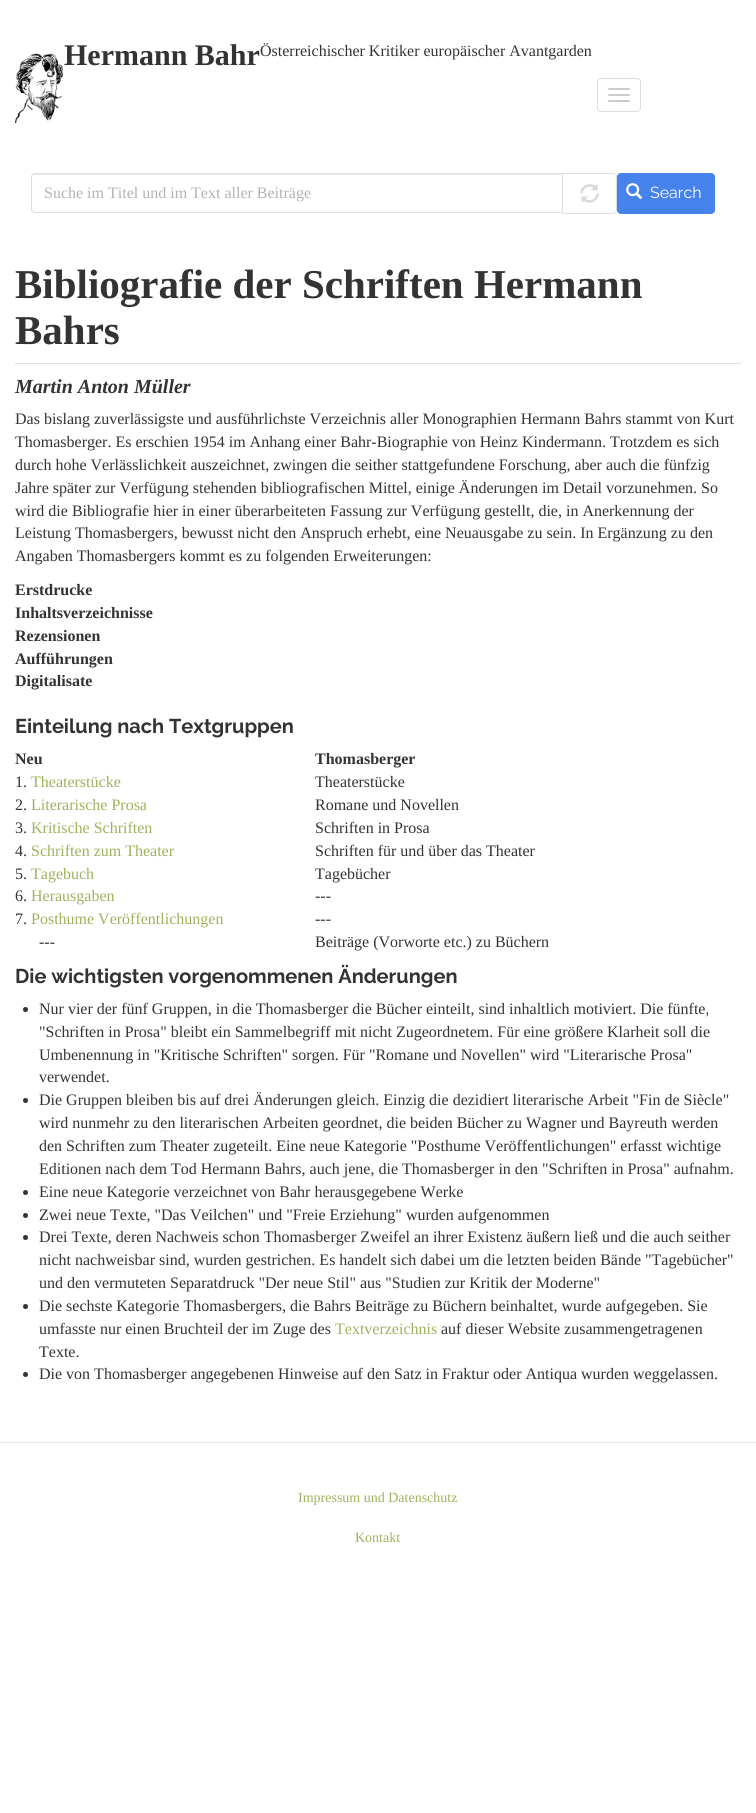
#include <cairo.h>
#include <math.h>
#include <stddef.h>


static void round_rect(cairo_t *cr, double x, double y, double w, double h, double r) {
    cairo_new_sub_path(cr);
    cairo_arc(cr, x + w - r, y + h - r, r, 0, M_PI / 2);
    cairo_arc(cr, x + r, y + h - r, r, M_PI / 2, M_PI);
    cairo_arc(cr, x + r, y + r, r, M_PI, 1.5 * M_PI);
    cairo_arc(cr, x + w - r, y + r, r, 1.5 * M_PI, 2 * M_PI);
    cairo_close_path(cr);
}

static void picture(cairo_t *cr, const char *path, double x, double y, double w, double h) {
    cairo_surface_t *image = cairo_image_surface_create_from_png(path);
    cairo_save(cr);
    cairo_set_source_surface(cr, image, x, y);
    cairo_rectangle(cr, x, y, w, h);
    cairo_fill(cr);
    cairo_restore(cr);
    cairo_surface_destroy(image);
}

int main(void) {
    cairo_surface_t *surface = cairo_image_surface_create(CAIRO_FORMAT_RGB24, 756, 1813);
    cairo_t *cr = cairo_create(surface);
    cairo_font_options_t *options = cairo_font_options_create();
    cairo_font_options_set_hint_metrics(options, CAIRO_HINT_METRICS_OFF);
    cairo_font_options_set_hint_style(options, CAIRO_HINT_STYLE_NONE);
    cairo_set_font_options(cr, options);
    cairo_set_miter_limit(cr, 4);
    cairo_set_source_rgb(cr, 1, 1, 1);
    cairo_paint(cr);
    picture(cr, "img1.png", 15, 53, 49, 70);
    cairo_select_font_face(cr, "Liberation Serif", CAIRO_FONT_SLANT_NORMAL, CAIRO_FONT_WEIGHT_BOLD);
    cairo_set_font_size(cr, 30);
    cairo_set_source_rgb(cr, 0.2, 0.2, 0.2);
    cairo_move_to(cr, 64, 65);
    cairo_show_text(cr, "Hermann Bahr");
    cairo_select_font_face(cr, "Liberation Serif", CAIRO_FONT_SLANT_NORMAL, CAIRO_FONT_WEIGHT_NORMAL);
    cairo_set_font_size(cr, 16);
    cairo_move_to(cr, 260, 56);
    cairo_show_text(cr, "Österreichischer Kritiker europäischer Avantgarden");
    round_rect(cr, 597.5, 78.5, 43, 33, 3.5);
    cairo_set_source_rgb(cr, 0.867, 0.867, 0.867);
    cairo_set_line_width(cr, 1);
    cairo_stroke(cr);
    cairo_set_source_rgb(cr, 0.8, 0.8, 0.8);
    round_rect(cr, 608, 88, 22, 2, 1);
    cairo_fill(cr);
    round_rect(cr, 608, 94, 22, 2, 1);
    cairo_fill(cr);
    round_rect(cr, 608, 100, 22, 2, 1);
    cairo_fill(cr);
    cairo_set_source_rgb(cr, 0.925, 0.925, 0.925);
    cairo_new_path(cr);
    cairo_move_to(cr, 35, 175);
    cairo_line_to(cr, 562, 175);
    cairo_line_to(cr, 562, 174);
    cairo_line_to(cr, 35, 174);
    cairo_curve_to(cr, 33, 174, 32, 176, 32, 178);
    cairo_curve_to(cr, 32, 176, 33, 175, 35, 175);
    cairo_close_path(cr);
    cairo_fill(cr);
    cairo_new_path(cr);
    cairo_move_to(cr, 35, 173.5);
    cairo_line_to(cr, 562.5, 173.5);
    cairo_line_to(cr, 562.5, 212.5);
    cairo_line_to(cr, 35, 212.5);
    cairo_curve_to(cr, 33, 212.5, 31.5, 211, 31.5, 209);
    cairo_line_to(cr, 31.5, 177);
    cairo_curve_to(cr, 31.5, 175, 33, 173.5, 35, 173.5);
    cairo_close_path(cr);
    cairo_set_source_rgb(cr, 0.867, 0.867, 0.867);
    cairo_stroke(cr);
    cairo_set_source_rgb(cr, 0.702, 0.702, 0.702);
    cairo_move_to(cr, 44, 198);
    cairo_show_text(cr, "Suche im Titel und im Text aller Beiträge");
    cairo_set_source_rgb(cr, 0.867, 0.867, 0.867);
    cairo_set_fill_rule(cr, CAIRO_FILL_RULE_EVEN_ODD);
    cairo_new_path(cr);
    cairo_move_to(cr, 563, 173);
    cairo_line_to(cr, 613, 173);
    cairo_curve_to(cr, 615, 173, 617, 175, 617, 177);
    cairo_line_to(cr, 617, 210);
    cairo_curve_to(cr, 617, 212, 615, 214, 613, 214);
    cairo_line_to(cr, 563, 214);
    cairo_close_path(cr);
    cairo_move_to(cr, 563, 174);
    cairo_line_to(cr, 613, 174);
    cairo_curve_to(cr, 615, 174, 616, 175, 616, 177);
    cairo_line_to(cr, 616, 210);
    cairo_curve_to(cr, 616, 212, 615, 213, 613, 213);
    cairo_line_to(cr, 563, 213);
    cairo_close_path(cr);
    cairo_fill(cr);
    picture(cr, "img2.png", 580, 184, 19, 19);
    cairo_set_source_rgb(cr, 0.271, 0.51, 0.925);
    round_rect(cr, 617.5, 173.5, 97, 40, 3.5);
    cairo_fill_preserve(cr);
    cairo_stroke(cr);
    picture(cr, "img3.png", 626, 183, 17, 17);
    cairo_select_font_face(cr, "Raleway", CAIRO_FONT_SLANT_NORMAL, CAIRO_FONT_WEIGHT_NORMAL);
    cairo_set_source_rgb(cr, 1, 1, 1);
    cairo_move_to(cr, 650, 198);
    cairo_show_text(cr, "Search");
    cairo_set_source_rgb(cr, 0.867, 0.867, 0.867);
    cairo_rectangle(cr, 15, 363, 726, 1);
    cairo_fill(cr);
    cairo_select_font_face(cr, "Liberation Serif", CAIRO_FONT_SLANT_NORMAL, CAIRO_FONT_WEIGHT_BOLD);
    cairo_set_font_size(cr, 41);
    cairo_set_source_rgb(cr, 0.2, 0.2, 0.2);
    cairo_move_to(cr, 15, 298);
    cairo_show_text(cr, "Bibliografie der Schriften Hermann");
    cairo_move_to(cr, 15, 344);
    cairo_show_text(cr, "Bahrs");
    cairo_select_font_face(cr, "Liberation Serif", CAIRO_FONT_SLANT_ITALIC, CAIRO_FONT_WEIGHT_BOLD);
    cairo_set_font_size(cr, 20);
    cairo_move_to(cr, 15, 393);
    cairo_show_text(cr, "Martin Anton Müller");
    cairo_select_font_face(cr, "Liberation Serif", CAIRO_FONT_SLANT_NORMAL, CAIRO_FONT_WEIGHT_NORMAL);
    cairo_set_font_size(cr, 16);
    cairo_move_to(cr, 15, 424);
    cairo_show_text(cr, "Das bislang zuverlässigste und ausführlichste Verzeichnis aller Monographien Hermann Bahrs stammt von Kurt");
    cairo_move_to(cr, 15, 447);
    cairo_show_text(cr, "Thomasberger. Es erschien 1954 im Anhang einer Bahr-Biographie von Heinz Kindermann. Trotzdem es sich");
    cairo_move_to(cr, 15, 470);
    cairo_show_text(cr, "durch hohe Verlässlichkeit auszeichnet, zwingen die seither stattgefundene Forschung, aber auch die fünfzig");
    cairo_move_to(cr, 15, 493);
    cairo_show_text(cr, "Jahre später zur Verfügung stehenden bibliografischen Mittel, einige Änderungen im Detail vorzunehmen. So");
    cairo_move_to(cr, 15, 516);
    cairo_show_text(cr, "wird die Bibliografie hier in einer überarbeiteten Fassung zur Verfügung gestellt, die, in Anerkennung der");
    cairo_move_to(cr, 15, 538);
    cairo_show_text(cr, "Leistung Thomasbergers, bewusst nicht den Anspruch erhebt, eine Neuausgabe zu sein. In Ergänzung zu den");
    cairo_move_to(cr, 15, 561);
    cairo_show_text(cr, "Angaben Thomasbergers kommt es zu folgenden Erweiterungen:");
    cairo_select_font_face(cr, "Liberation Serif", CAIRO_FONT_SLANT_NORMAL, CAIRO_FONT_WEIGHT_BOLD);
    cairo_move_to(cr, 15, 595);
    cairo_show_text(cr, "Erstdrucke");
    cairo_move_to(cr, 15, 618);
    cairo_show_text(cr, "Inhaltsverzeichnisse");
    cairo_move_to(cr, 15, 641);
    cairo_show_text(cr, "Rezensionen");
    cairo_move_to(cr, 15, 664);
    cairo_show_text(cr, "Aufführungen");
    cairo_move_to(cr, 15, 686);
    cairo_show_text(cr, "Digitalisate");
    cairo_select_font_face(cr, "Raleway", CAIRO_FONT_SLANT_NORMAL, CAIRO_FONT_WEIGHT_BOLD);
    cairo_set_font_size(cr, 20);
    cairo_move_to(cr, 15, 733);
    cairo_show_text(cr, "Einteilung nach Textgruppen");
    cairo_select_font_face(cr, "Liberation Serif", CAIRO_FONT_SLANT_NORMAL, CAIRO_FONT_WEIGHT_BOLD);
    cairo_set_font_size(cr, 16);
    cairo_move_to(cr, 15, 764);
    cairo_show_text(cr, "Neu");
    cairo_move_to(cr, 315, 764);
    cairo_show_text(cr, "Thomasberger");
    cairo_select_font_face(cr, "Liberation Serif", CAIRO_FONT_SLANT_NORMAL, CAIRO_FONT_WEIGHT_NORMAL);
    cairo_move_to(cr, 15, 787);
    cairo_show_text(cr, "1.");
    cairo_set_source_rgb(cr, 0.62, 0.698, 0.365);
    cairo_move_to(cr, 31, 787);
    cairo_show_text(cr, "Theaterstücke");
    cairo_set_source_rgb(cr, 0.2, 0.2, 0.2);
    cairo_move_to(cr, 315, 787);
    cairo_show_text(cr, "Theaterstücke");
    cairo_move_to(cr, 15, 810);
    cairo_show_text(cr, "2.");
    cairo_set_source_rgb(cr, 0.62, 0.698, 0.365);
    cairo_move_to(cr, 31, 810);
    cairo_show_text(cr, "Literarische Prosa");
    cairo_set_source_rgb(cr, 0.2, 0.2, 0.2);
    cairo_move_to(cr, 315, 810);
    cairo_show_text(cr, "Romane und Novellen");
    cairo_move_to(cr, 15, 833);
    cairo_show_text(cr, "3.");
    cairo_set_source_rgb(cr, 0.62, 0.698, 0.365);
    cairo_move_to(cr, 31, 833);
    cairo_show_text(cr, "Kritische Schriften");
    cairo_set_source_rgb(cr, 0.2, 0.2, 0.2);
    cairo_move_to(cr, 315, 833);
    cairo_show_text(cr, "Schriften in Prosa");
    cairo_move_to(cr, 15, 856);
    cairo_show_text(cr, "4.");
    cairo_set_source_rgb(cr, 0.62, 0.698, 0.365);
    cairo_move_to(cr, 31, 856);
    cairo_show_text(cr, "Schriften zum Theater");
    cairo_set_source_rgb(cr, 0.2, 0.2, 0.2);
    cairo_move_to(cr, 315, 856);
    cairo_show_text(cr, "Schriften für und über das Theater");
    cairo_move_to(cr, 15, 879);
    cairo_show_text(cr, "5.");
    cairo_set_source_rgb(cr, 0.62, 0.698, 0.365);
    cairo_move_to(cr, 31, 879);
    cairo_show_text(cr, "Tagebuch");
    cairo_set_source_rgb(cr, 0.2, 0.2, 0.2);
    cairo_move_to(cr, 315, 879);
    cairo_show_text(cr, "Tagebücher");
    cairo_move_to(cr, 15, 901);
    cairo_show_text(cr, "6.");
    cairo_set_source_rgb(cr, 0.62, 0.698, 0.365);
    cairo_move_to(cr, 31, 901);
    cairo_show_text(cr, "Herausgaben");
    cairo_set_source_rgb(cr, 0.2, 0.2, 0.2);
    cairo_move_to(cr, 315, 901);
    cairo_show_text(cr, "---");
    cairo_move_to(cr, 15, 924);
    cairo_show_text(cr, "7.");
    cairo_set_source_rgb(cr, 0.62, 0.698, 0.365);
    cairo_move_to(cr, 31, 924);
    cairo_show_text(cr, "Posthume Veröffentlichungen");
    cairo_set_source_rgb(cr, 0.2, 0.2, 0.2);
    cairo_move_to(cr, 315, 924);
    cairo_show_text(cr, "---");
    cairo_move_to(cr, 39, 947);
    cairo_show_text(cr, "---");
    cairo_move_to(cr, 315, 947);
    cairo_show_text(cr, "Beiträge (Vorworte etc.) zu Büchern");
    cairo_select_font_face(cr, "Raleway", CAIRO_FONT_SLANT_NORMAL, CAIRO_FONT_WEIGHT_BOLD);
    cairo_set_font_size(cr, 20);
    cairo_move_to(cr, 15, 983);
    cairo_show_text(cr, "Die wichtigsten vorgenommenen Änderungen");
    cairo_new_path(cr);
    cairo_arc(cr, 25.5, 1009.5, 2.5, 0, 2 * M_PI);
    cairo_fill(cr);
    cairo_select_font_face(cr, "Liberation Serif", CAIRO_FONT_SLANT_NORMAL, CAIRO_FONT_WEIGHT_NORMAL);
    cairo_set_font_size(cr, 16);
    cairo_move_to(cr, 39, 1014);
    cairo_show_text(cr, "Nur vier der fünf Gruppen, in die Thomasberger die Bücher einteilt, sind inhaltlich motiviert. Die fünfte,");
    cairo_move_to(cr, 39, 1037);
    cairo_show_text(cr, "\"Schriften in Prosa\" bleibt ein Sammelbegriff mit nicht Zugeordnetem. Für eine größere Klarheit soll die");
    cairo_move_to(cr, 39, 1060);
    cairo_show_text(cr, "Umbenennung in \"Kritische Schriften\" sorgen. Für \"Romane und Novellen\" wird \"Literarische Prosa\"");
    cairo_move_to(cr, 39, 1082);
    cairo_show_text(cr, "verwendet.");
    cairo_new_path(cr);
    cairo_arc(cr, 25.5, 1100.5, 2.5, 0, 2 * M_PI);
    cairo_fill(cr);
    cairo_move_to(cr, 39, 1105);
    cairo_show_text(cr, "Die Gruppen bleiben bis auf drei Änderungen gleich. Einzig die dezidiert literarische Arbeit \"Fin de Siècle\"");
    cairo_move_to(cr, 39, 1128);
    cairo_show_text(cr, "wird nunmehr zu den literarischen Arbeiten geordnet, die beiden Bücher zu Wagner und Bayreuth werden");
    cairo_move_to(cr, 39, 1151);
    cairo_show_text(cr, "den Schriften zum Theater zugeteilt. Eine neue Kategorie \"Posthume Veröffentlichungen\" erfasst wichtige");
    cairo_move_to(cr, 39, 1174);
    cairo_show_text(cr, "Editionen nach dem Tod Hermann Bahrs, auch jene, die Thomasberger in den \"Schriften in Prosa\" aufnahm.");
    cairo_new_path(cr);
    cairo_arc(cr, 25.5, 1192.5, 2.5, 0, 2 * M_PI);
    cairo_fill(cr);
    cairo_move_to(cr, 39, 1197);
    cairo_show_text(cr, "Eine neue Kategorie verzeichnet von Bahr herausgegebene Werke");
    cairo_new_path(cr);
    cairo_arc(cr, 25.5, 1215.5, 2.5, 0, 2 * M_PI);
    cairo_fill(cr);
    cairo_move_to(cr, 39, 1220);
    cairo_show_text(cr, "Zwei neue Texte, \"Das Veilchen\" und \"Freie Erziehung\" wurden aufgenommen");
    cairo_new_path(cr);
    cairo_arc(cr, 25.5, 1237.5, 2.5, 0, 2 * M_PI);
    cairo_fill(cr);
    cairo_move_to(cr, 39, 1242);
    cairo_show_text(cr, "Drei Texte, deren Nachweis schon Thomasberger Zweifel an ihrer Existenz äußern ließ und die auch seither");
    cairo_move_to(cr, 39, 1265);
    cairo_show_text(cr, "nicht nachweisbar sind, wurden gestrichen. Es handelt sich dabei um die letzten beiden Bände \"Tagebücher\"");
    cairo_move_to(cr, 39, 1288);
    cairo_show_text(cr, "und den vermuteten Separatdruck \"Der neue Stil\" aus \"Studien zur Kritik der Moderne\"");
    cairo_new_path(cr);
    cairo_arc(cr, 25.5, 1306.5, 2.5, 0, 2 * M_PI);
    cairo_fill(cr);
    cairo_move_to(cr, 39, 1311);
    cairo_show_text(cr, "Die sechste Kategorie Thomasbergers, die Bahrs Beiträge zu Büchern beinhaltet, wurde aufgegeben. Sie");
    cairo_move_to(cr, 39, 1334);
    cairo_show_text(cr, "umfasste nur einen Bruchteil der im Zuge des");
    cairo_set_source_rgb(cr, 0.62, 0.698, 0.365);
    cairo_move_to(cr, 335, 1334);
    cairo_show_text(cr, "Textverzeichnis");
    cairo_set_source_rgb(cr, 0.2, 0.2, 0.2);
    cairo_move_to(cr, 441, 1334);
    cairo_show_text(cr, "auf dieser Website zusammengetragenen");
    cairo_move_to(cr, 39, 1357);
    cairo_show_text(cr, "Texte.");
    cairo_new_path(cr);
    cairo_arc(cr, 25.5, 1374.5, 2.5, 0, 2 * M_PI);
    cairo_fill(cr);
    cairo_move_to(cr, 39, 1379);
    cairo_show_text(cr, "Die von Thomasberger angegebenen Hinweise auf den Satz in Fraktur oder Antiqua wurden weggelassen.");
    cairo_set_source_rgb(cr, 0.898, 0.898, 0.898);
    cairo_rectangle(cr, 0, 1442, 756, 1);
    cairo_fill(cr);
    cairo_set_font_size(cr, 14);
    cairo_set_source_rgb(cr, 0.62, 0.698, 0.365);
    cairo_move_to(cr, 298, 1502);
    cairo_show_text(cr, "Impressum und Datenschutz");
    cairo_move_to(cr, 355, 1542);
    cairo_show_text(cr, "Kontakt");
    cairo_surface_write_to_png(surface, "page.png");
    cairo_font_options_destroy(options);
    cairo_destroy(cr);
    cairo_surface_destroy(surface);
    return 0;
}
